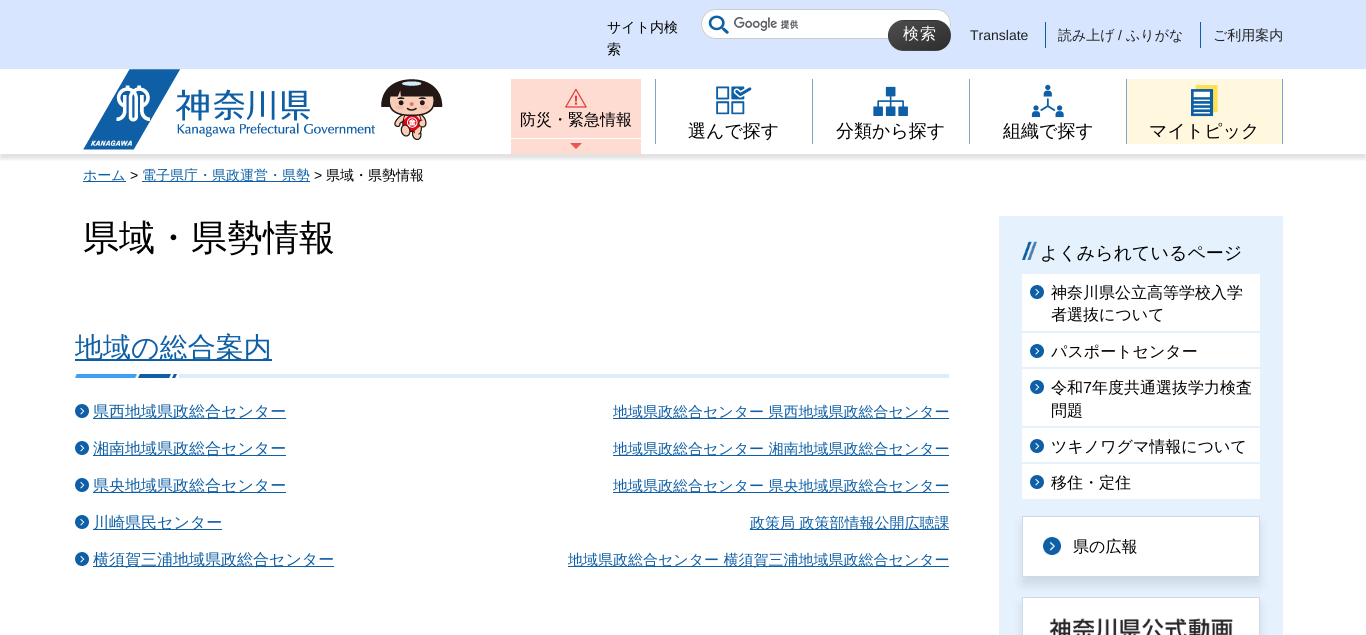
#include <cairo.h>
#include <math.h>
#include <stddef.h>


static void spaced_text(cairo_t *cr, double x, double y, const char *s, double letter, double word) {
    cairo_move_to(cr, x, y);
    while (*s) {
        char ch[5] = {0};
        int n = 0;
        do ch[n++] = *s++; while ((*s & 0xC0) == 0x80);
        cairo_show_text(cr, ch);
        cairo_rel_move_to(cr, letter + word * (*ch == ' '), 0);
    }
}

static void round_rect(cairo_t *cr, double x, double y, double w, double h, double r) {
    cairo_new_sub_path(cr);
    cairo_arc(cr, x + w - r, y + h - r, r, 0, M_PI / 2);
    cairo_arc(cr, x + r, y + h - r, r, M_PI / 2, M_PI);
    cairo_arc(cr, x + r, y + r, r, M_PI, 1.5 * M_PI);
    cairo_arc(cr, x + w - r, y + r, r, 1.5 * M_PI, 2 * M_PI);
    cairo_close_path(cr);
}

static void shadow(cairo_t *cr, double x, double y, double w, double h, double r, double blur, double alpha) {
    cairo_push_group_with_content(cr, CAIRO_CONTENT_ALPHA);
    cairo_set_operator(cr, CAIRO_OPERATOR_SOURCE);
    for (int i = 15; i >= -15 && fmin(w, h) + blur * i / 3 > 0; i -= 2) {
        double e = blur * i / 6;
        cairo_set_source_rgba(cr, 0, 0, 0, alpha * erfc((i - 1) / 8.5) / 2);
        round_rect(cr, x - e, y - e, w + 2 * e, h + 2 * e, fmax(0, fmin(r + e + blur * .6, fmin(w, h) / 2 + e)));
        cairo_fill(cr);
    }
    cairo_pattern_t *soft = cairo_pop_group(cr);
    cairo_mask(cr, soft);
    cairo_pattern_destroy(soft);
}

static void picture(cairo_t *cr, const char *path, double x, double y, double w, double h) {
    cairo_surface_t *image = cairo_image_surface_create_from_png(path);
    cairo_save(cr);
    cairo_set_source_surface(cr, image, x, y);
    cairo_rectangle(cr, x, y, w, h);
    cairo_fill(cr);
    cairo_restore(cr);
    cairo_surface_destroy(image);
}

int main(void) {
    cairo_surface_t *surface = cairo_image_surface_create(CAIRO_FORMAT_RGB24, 1366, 635);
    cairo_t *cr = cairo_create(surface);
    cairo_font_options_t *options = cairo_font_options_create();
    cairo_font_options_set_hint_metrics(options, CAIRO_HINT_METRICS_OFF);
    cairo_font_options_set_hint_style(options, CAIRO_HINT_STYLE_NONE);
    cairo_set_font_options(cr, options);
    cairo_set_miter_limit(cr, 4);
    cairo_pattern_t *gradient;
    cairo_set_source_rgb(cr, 1, 1, 1);
    cairo_paint(cr);
    cairo_set_source_rgb(cr, 0.843, 0.902, 0.996);
    cairo_rectangle(cr, 0, 0, 1366, 69);
    cairo_fill(cr);
    cairo_select_font_face(cr, "WenQuanYi Zen Hei Medium", CAIRO_FONT_SLANT_NORMAL, CAIRO_FONT_WEIGHT_NORMAL);
    cairo_set_font_size(cr, 14);
    cairo_set_source_rgb(cr, 0, 0, 0);
    cairo_move_to(cr, 607, 32);
    cairo_show_text(cr, "サイト内検");
    cairo_move_to(cr, 607, 54);
    cairo_show_text(cr, "索");
    cairo_set_source_rgb(cr, 1, 1, 1);
    round_rect(cr, 701, 9, 250, 30, 15);
    cairo_fill(cr);
    picture(cr, "img1.png", 708, 15, 90, 19);
    round_rect(cr, 701.5, 9.5, 249, 29, 14.5);
    cairo_set_source_rgb(cr, 0.8, 0.8, 0.8);
    cairo_set_line_width(cr, 1);
    cairo_stroke(cr);
    cairo_save(cr);
    round_rect(cr, 888, 20, 63, 31, 15.5);
    cairo_clip(cr);
    gradient = cairo_pattern_create_linear(932, 30, 907, -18);
    cairo_pattern_add_color_stop_rgba(gradient, 0, 0.176, 0.176, 0.176, 1);
    cairo_pattern_add_color_stop_rgba(gradient, 1, 0.306, 0.306, 0.306, 1);
    cairo_set_source(cr, gradient);
    cairo_pattern_destroy(gradient);
    cairo_rectangle(cr, 898, 20, 43, 1);
    cairo_fill(cr);
    gradient = cairo_pattern_create_linear(871, 59, 846, 11);
    cairo_pattern_add_color_stop_rgba(gradient, 0, 0.176, 0.176, 0.176, 1);
    cairo_pattern_add_color_stop_rgba(gradient, 1, 0.306, 0.306, 0.306, 1);
    cairo_set_source(cr, gradient);
    cairo_pattern_destroy(gradient);
    cairo_rectangle(cr, 888, 30, 1, 11);
    cairo_fill(cr);
    gradient = cairo_pattern_create_linear(932, 59, 907, 11);
    cairo_pattern_add_color_stop_rgba(gradient, 0, 0.176, 0.176, 0.176, 1);
    cairo_pattern_add_color_stop_rgba(gradient, 1, 0.306, 0.306, 0.306, 1);
    cairo_set_source(cr, gradient);
    cairo_pattern_destroy(gradient);
    cairo_rectangle(cr, 889, 21, 61, 29);
    cairo_fill(cr);
    gradient = cairo_pattern_create_linear(993, 59, 968, 11);
    cairo_pattern_add_color_stop_rgba(gradient, 0, 0.176, 0.176, 0.176, 1);
    cairo_pattern_add_color_stop_rgba(gradient, 1, 0.306, 0.306, 0.306, 1);
    cairo_set_source(cr, gradient);
    cairo_pattern_destroy(gradient);
    cairo_rectangle(cr, 950, 30, 1, 11);
    cairo_fill(cr);
    gradient = cairo_pattern_create_linear(932, 88, 907, 40);
    cairo_pattern_add_color_stop_rgba(gradient, 0, 0.176, 0.176, 0.176, 1);
    cairo_pattern_add_color_stop_rgba(gradient, 1, 0.306, 0.306, 0.306, 1);
    cairo_set_source(cr, gradient);
    cairo_pattern_destroy(gradient);
    cairo_rectangle(cr, 898, 50, 43, 1);
    cairo_fill(cr);
    cairo_restore(cr);
    cairo_set_font_size(cr, 16);
    cairo_set_source_rgb(cr, 1, 1, 1);
    spaced_text(cr, 903, 39, "検索", 1, 0);
    cairo_set_source_rgb(cr, 0.055, 0.373, 0.651);
    cairo_rectangle(cr, 1045, 22, 1, 26);
    cairo_fill(cr);
    cairo_select_font_face(cr, "Liberation Sans", CAIRO_FONT_SLANT_NORMAL, CAIRO_FONT_WEIGHT_NORMAL);
    cairo_set_font_size(cr, 14);
    cairo_set_source_rgb(cr, 0.133, 0.133, 0.133);
    cairo_move_to(cr, 970, 40);
    cairo_show_text(cr, "Translate");
    cairo_set_source_rgb(cr, 0.055, 0.373, 0.651);
    cairo_rectangle(cr, 1200, 22, 1, 26);
    cairo_fill(cr);
    cairo_select_font_face(cr, "WenQuanYi Zen Hei Medium", CAIRO_FONT_SLANT_NORMAL, CAIRO_FONT_WEIGHT_NORMAL);
    cairo_set_source_rgb(cr, 0.133, 0.133, 0.133);
    cairo_move_to(cr, 1058, 40);
    cairo_show_text(cr, "読み上げ");
    cairo_select_font_face(cr, "Liberation Sans", CAIRO_FONT_SLANT_NORMAL, CAIRO_FONT_WEIGHT_NORMAL);
    cairo_move_to(cr, 1118, 40);
    cairo_show_text(cr, "/");
    cairo_select_font_face(cr, "WenQuanYi Zen Hei Medium", CAIRO_FONT_SLANT_NORMAL, CAIRO_FONT_WEIGHT_NORMAL);
    cairo_move_to(cr, 1126, 40);
    cairo_show_text(cr, "ふりがな");
    cairo_move_to(cr, 1213, 40);
    cairo_show_text(cr, "ご利用案内");
    cairo_save(cr);
    cairo_rectangle(cr, 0, 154, 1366, 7);
    cairo_clip(cr);
    cairo_set_source_rgb(cr, 0.196, 0.196, 0.196);
    shadow(cr, 0, 74, 1366, 85, 0, 2, 0.15);
    cairo_restore(cr);
    picture(cr, "img2.png", 83, 69, 360, 81);
    cairo_set_source_rgb(cr, 1, 0.863, 0.82);
    cairo_rectangle(cr, 511, 79, 130, 75);
    cairo_fill(cr);
    picture(cr, "img3.png", 565, 88, 22, 20);
    cairo_set_font_size(cr, 16);
    cairo_set_source_rgb(cr, 0, 0, 0);
    cairo_move_to(cr, 520, 125);
    cairo_show_text(cr, "防災・緊急情報");
    picture(cr, "img4.png", 570, 143, 12, 6);
    cairo_set_source_rgb(cr, 1, 1, 1);
    cairo_rectangle(cr, 508, 138, 136, 1);
    cairo_fill(cr);
    cairo_set_source_rgb(cr, 0.486, 0.647, 0.788);
    cairo_rectangle(cr, 655, 79, 1, 65);
    cairo_fill(cr);
    picture(cr, "img5.png", 716, 86, 36, 29);
    cairo_set_font_size(cr, 18);
    cairo_set_source_rgb(cr, 0, 0, 0);
    cairo_move_to(cr, 688, 137);
    cairo_show_text(cr, "選んで探す");
    cairo_set_source_rgb(cr, 0.486, 0.647, 0.788);
    cairo_rectangle(cr, 812, 79, 1, 65);
    cairo_fill(cr);
    picture(cr, "img6.png", 873, 86, 35, 30);
    cairo_set_source_rgb(cr, 0, 0, 0);
    cairo_move_to(cr, 836, 137);
    cairo_show_text(cr, "分類から探す");
    cairo_set_source_rgb(cr, 0.486, 0.647, 0.788);
    cairo_rectangle(cr, 969, 79, 1, 65);
    cairo_fill(cr);
    picture(cr, "img7.png", 1031, 84, 33, 34);
    cairo_set_source_rgb(cr, 0, 0, 0);
    cairo_move_to(cr, 1003, 137);
    cairo_show_text(cr, "組織で探す");
    cairo_set_source_rgb(cr, 0.486, 0.647, 0.788);
    cairo_rectangle(cr, 1282, 79, 1, 65);
    cairo_fill(cr);
    cairo_rectangle(cr, 1126, 79, 1, 65);
    cairo_fill(cr);
    cairo_set_source_rgb(cr, 1, 0.969, 0.871);
    cairo_rectangle(cr, 1127, 79, 155, 65);
    cairo_fill(cr);
    picture(cr, "img8.png", 1191, 85, 27, 32);
    cairo_set_source_rgb(cr, 0, 0, 0);
    cairo_move_to(cr, 1149, 137);
    cairo_show_text(cr, "マイトピック");
    cairo_set_source_rgb(cr, 0.055, 0.373, 0.651);
    cairo_rectangle(cr, 83, 181, 43, 1);
    cairo_fill(cr);
    cairo_set_font_size(cr, 14);
    cairo_move_to(cr, 83, 180);
    cairo_show_text(cr, "ホーム");
    cairo_select_font_face(cr, "Liberation Sans", CAIRO_FONT_SLANT_NORMAL, CAIRO_FONT_WEIGHT_NORMAL);
    cairo_set_source_rgb(cr, 0, 0, 0);
    cairo_move_to(cr, 130, 180);
    cairo_show_text(cr, ">");
    cairo_set_source_rgb(cr, 0.055, 0.373, 0.651);
    cairo_rectangle(cr, 142, 181, 168, 1);
    cairo_fill(cr);
    cairo_select_font_face(cr, "WenQuanYi Zen Hei Medium", CAIRO_FONT_SLANT_NORMAL, CAIRO_FONT_WEIGHT_NORMAL);
    cairo_move_to(cr, 142, 180);
    cairo_show_text(cr, "電子県庁・県政運営・県勢");
    cairo_select_font_face(cr, "Liberation Sans", CAIRO_FONT_SLANT_NORMAL, CAIRO_FONT_WEIGHT_NORMAL);
    cairo_set_source_rgb(cr, 0, 0, 0);
    cairo_move_to(cr, 314, 180);
    cairo_show_text(cr, ">");
    cairo_select_font_face(cr, "WenQuanYi Zen Hei Medium", CAIRO_FONT_SLANT_NORMAL, CAIRO_FONT_WEIGHT_NORMAL);
    cairo_move_to(cr, 326, 180);
    cairo_show_text(cr, "県域・県勢情報");
    cairo_set_font_size(cr, 36);
    cairo_move_to(cr, 83, 250);
    cairo_show_text(cr, "県域・県勢情報");
    picture(cr, "img9.png", 75, 374, 874, 4);
    cairo_set_source_rgb(cr, 0.055, 0.373, 0.651);
    cairo_rectangle(cr, 75, 359, 197, 2);
    cairo_fill(cr);
    cairo_set_font_size(cr, 28);
    cairo_move_to(cr, 75, 357);
    cairo_show_text(cr, "地域の総合案内");
    picture(cr, "img10.png", 75, 404, 14, 14);
    cairo_rectangle(cr, 93, 418, 193, 1);
    cairo_fill(cr);
    cairo_set_font_size(cr, 16);
    cairo_move_to(cr, 93, 417);
    cairo_show_text(cr, "県西地域県政総合センター");
    cairo_rectangle(cr, 613, 418, 336, 1);
    cairo_fill(cr);
    cairo_set_font_size(cr, 15);
    cairo_move_to(cr, 613, 417);
    cairo_show_text(cr, "地域県政総合センター 県西地域県政総合センター");
    picture(cr, "img10.png", 75, 441, 14, 14);
    cairo_rectangle(cr, 93, 455, 193, 1);
    cairo_fill(cr);
    cairo_set_font_size(cr, 16);
    cairo_move_to(cr, 93, 454);
    cairo_show_text(cr, "湘南地域県政総合センター");
    cairo_rectangle(cr, 613, 455, 336, 1);
    cairo_fill(cr);
    cairo_set_font_size(cr, 15);
    cairo_move_to(cr, 613, 454);
    cairo_show_text(cr, "地域県政総合センター 湘南地域県政総合センター");
    picture(cr, "img10.png", 75, 478, 14, 14);
    cairo_rectangle(cr, 93, 492, 193, 1);
    cairo_fill(cr);
    cairo_set_font_size(cr, 16);
    cairo_move_to(cr, 93, 491);
    cairo_show_text(cr, "県央地域県政総合センター");
    cairo_rectangle(cr, 613, 492, 336, 1);
    cairo_fill(cr);
    cairo_set_font_size(cr, 15);
    cairo_move_to(cr, 613, 491);
    cairo_show_text(cr, "地域県政総合センター 県央地域県政総合センター");
    picture(cr, "img10.png", 75, 515, 14, 14);
    cairo_rectangle(cr, 93, 529, 129, 1);
    cairo_fill(cr);
    cairo_set_font_size(cr, 16);
    cairo_move_to(cr, 93, 528);
    cairo_show_text(cr, "川崎県民センター");
    cairo_rectangle(cr, 750, 529, 199, 1);
    cairo_fill(cr);
    cairo_set_font_size(cr, 15);
    cairo_move_to(cr, 750, 528);
    cairo_show_text(cr, "政策局 政策部情報公開広聴課");
    picture(cr, "img10.png", 75, 552, 14, 14);
    cairo_rectangle(cr, 93, 566, 241, 1);
    cairo_fill(cr);
    cairo_set_font_size(cr, 16);
    cairo_move_to(cr, 93, 565);
    cairo_show_text(cr, "横須賀三浦地域県政総合センター");
    cairo_rectangle(cr, 568, 566, 381, 1);
    cairo_fill(cr);
    cairo_set_font_size(cr, 15);
    cairo_move_to(cr, 568, 565);
    cairo_show_text(cr, "地域県政総合センター 横須賀三浦地域県政総合センター");
    cairo_set_source_rgb(cr, 0.898, 0.945, 0.992);
    cairo_rectangle(cr, 999, 216, 284, 419);
    cairo_fill(cr);
    picture(cr, "img11.png", 1022, 241, 15, 19);
    cairo_set_font_size(cr, 18);
    cairo_set_source_rgb(cr, 0, 0, 0);
    cairo_move_to(cr, 1040, 259);
    cairo_show_text(cr, "よくみられているページ");
    cairo_set_source_rgb(cr, 1, 1, 1);
    cairo_rectangle(cr, 1022, 274, 238, 57);
    cairo_fill(cr);
    picture(cr, "img10.png", 1030, 285, 14, 14);
    cairo_set_font_size(cr, 16);
    cairo_set_source_rgb(cr, 0, 0, 0);
    cairo_move_to(cr, 1051, 298);
    cairo_show_text(cr, "神奈川県公立高等学校入学");
    cairo_move_to(cr, 1051, 320);
    cairo_show_text(cr, "者選抜について");
    cairo_set_source_rgb(cr, 1, 1, 1);
    cairo_rectangle(cr, 1022, 333, 238, 34);
    cairo_fill(cr);
    picture(cr, "img10.png", 1030, 344, 14, 14);
    cairo_set_source_rgb(cr, 0, 0, 0);
    cairo_move_to(cr, 1051, 357);
    cairo_show_text(cr, "パスポートセンター");
    cairo_set_source_rgb(cr, 1, 1, 1);
    cairo_rectangle(cr, 1022, 369, 238, 57);
    cairo_fill(cr);
    picture(cr, "img10.png", 1030, 380, 14, 14);
    cairo_set_source_rgb(cr, 0, 0, 0);
    cairo_move_to(cr, 1051, 393);
    cairo_show_text(cr, "令和");
    cairo_select_font_face(cr, "Liberation Sans", CAIRO_FONT_SLANT_NORMAL, CAIRO_FONT_WEIGHT_NORMAL);
    cairo_move_to(cr, 1083, 393);
    cairo_show_text(cr, "7");
    cairo_select_font_face(cr, "WenQuanYi Zen Hei Medium", CAIRO_FONT_SLANT_NORMAL, CAIRO_FONT_WEIGHT_NORMAL);
    cairo_move_to(cr, 1092, 393);
    cairo_show_text(cr, "年度共通選抜学力検査");
    cairo_move_to(cr, 1051, 416);
    cairo_show_text(cr, "問題");
    cairo_set_source_rgb(cr, 1, 1, 1);
    cairo_rectangle(cr, 1022, 428, 238, 34);
    cairo_fill(cr);
    picture(cr, "img10.png", 1030, 439, 14, 14);
    cairo_set_source_rgb(cr, 0, 0, 0);
    cairo_move_to(cr, 1051, 452);
    cairo_show_text(cr, "ツキノワグマ情報について");
    cairo_set_source_rgb(cr, 1, 1, 1);
    cairo_rectangle(cr, 1022, 464, 238, 35);
    cairo_fill(cr);
    picture(cr, "img10.png", 1030, 475, 14, 14);
    cairo_set_source_rgb(cr, 0, 0, 0);
    cairo_move_to(cr, 1051, 488);
    cairo_show_text(cr, "移住・定住");
    cairo_set_source_rgb(cr, 0, 0, 0);
    shadow(cr, 1022, 524, 238, 61, 0, 5, 0.1);
    cairo_set_source_rgb(cr, 1, 1, 1);
    cairo_rectangle(cr, 1023, 517, 236, 59);
    cairo_fill(cr);
    picture(cr, "img12.png", 1043, 537, 18, 18);
    cairo_rectangle(cr, 1022.5, 516.5, 237, 60);
    cairo_set_source_rgb(cr, 0.812, 0.847, 0.898);
    cairo_stroke(cr);
    cairo_set_source_rgb(cr, 0, 0, 0);
    cairo_move_to(cr, 1073, 552);
    cairo_show_text(cr, "県の広報");
    cairo_set_source_rgb(cr, 0, 0, 0);
    shadow(cr, 1022, 605, 238, 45, 0, 5, 0.1);
    cairo_rectangle(cr, 1022.5, 597.5, 237, 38);
    cairo_set_source_rgb(cr, 0.812, 0.847, 0.898);
    cairo_stroke(cr);
    picture(cr, "img13.png", 1023, 598, 236, 37);
    cairo_surface_write_to_png(surface, "page.png");
    cairo_font_options_destroy(options);
    cairo_destroy(cr);
    cairo_surface_destroy(surface);
    return 0;
}
